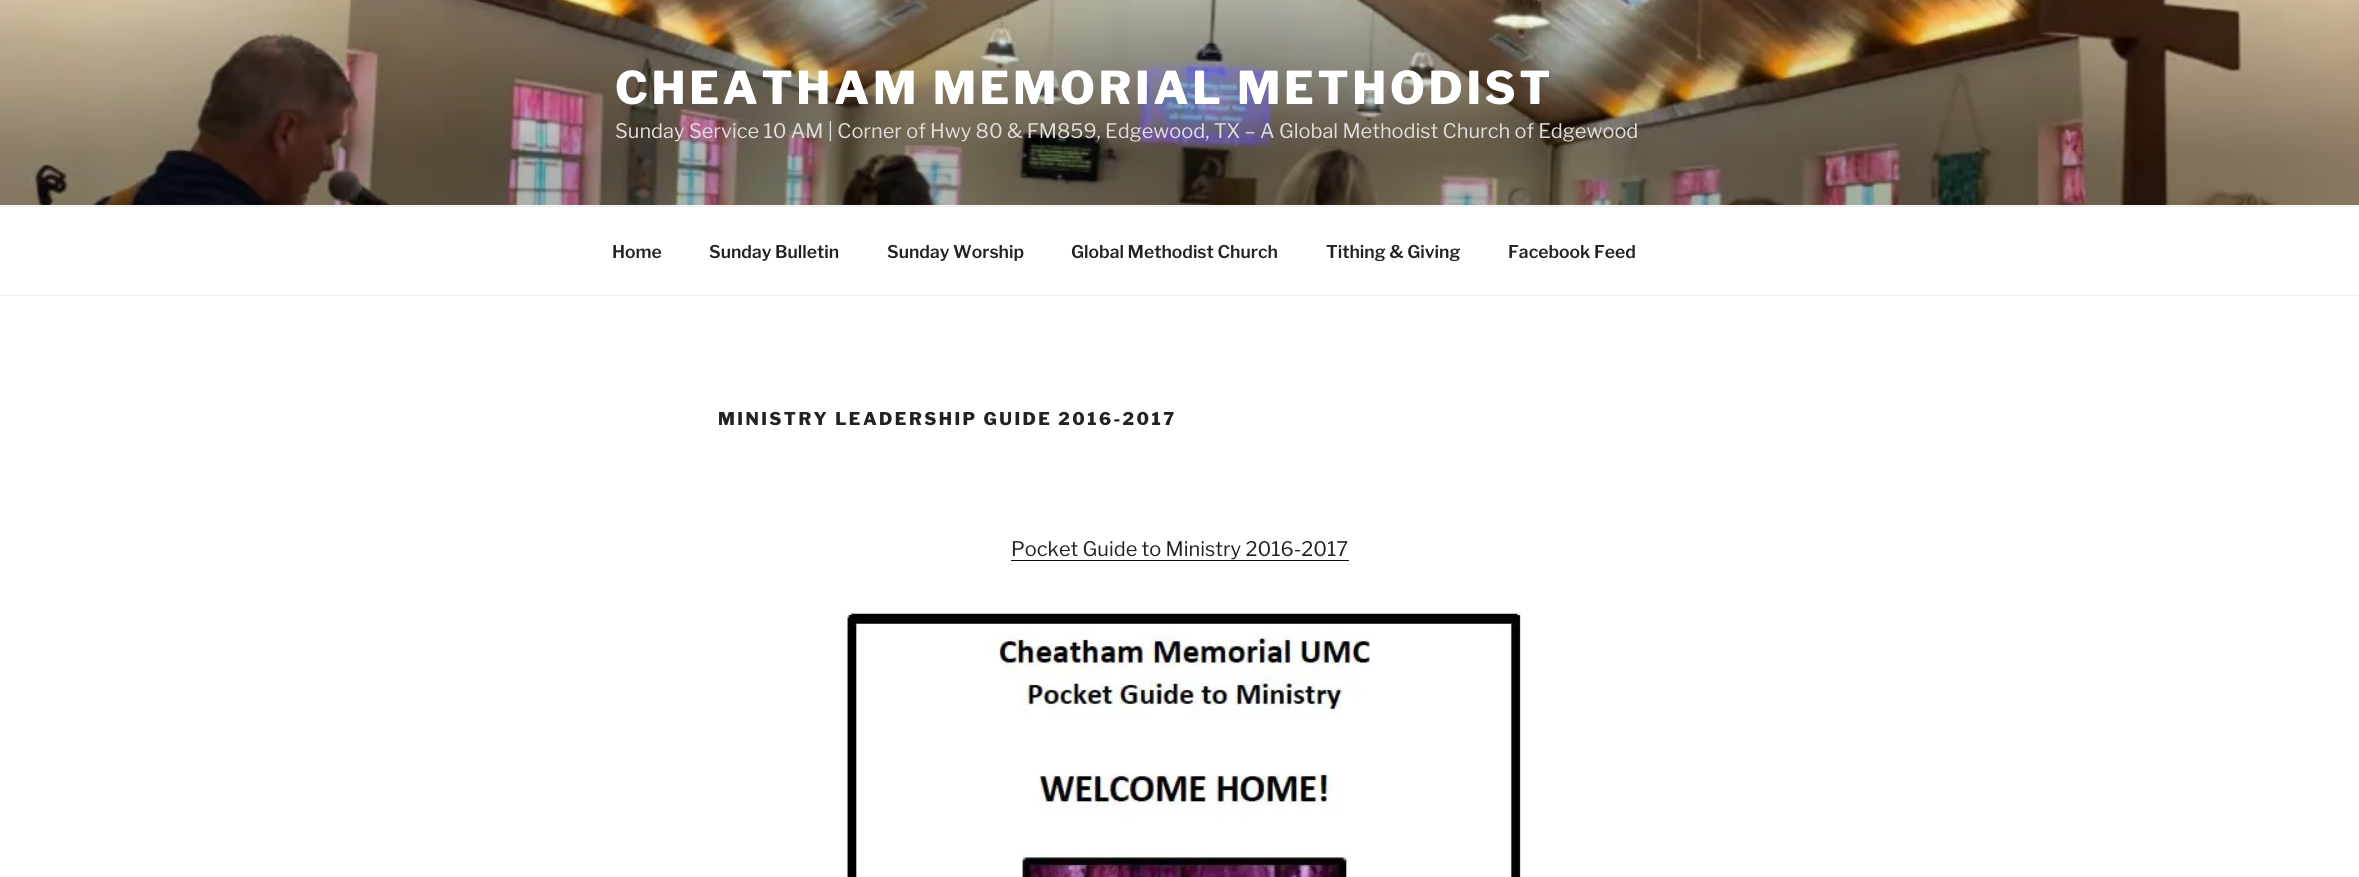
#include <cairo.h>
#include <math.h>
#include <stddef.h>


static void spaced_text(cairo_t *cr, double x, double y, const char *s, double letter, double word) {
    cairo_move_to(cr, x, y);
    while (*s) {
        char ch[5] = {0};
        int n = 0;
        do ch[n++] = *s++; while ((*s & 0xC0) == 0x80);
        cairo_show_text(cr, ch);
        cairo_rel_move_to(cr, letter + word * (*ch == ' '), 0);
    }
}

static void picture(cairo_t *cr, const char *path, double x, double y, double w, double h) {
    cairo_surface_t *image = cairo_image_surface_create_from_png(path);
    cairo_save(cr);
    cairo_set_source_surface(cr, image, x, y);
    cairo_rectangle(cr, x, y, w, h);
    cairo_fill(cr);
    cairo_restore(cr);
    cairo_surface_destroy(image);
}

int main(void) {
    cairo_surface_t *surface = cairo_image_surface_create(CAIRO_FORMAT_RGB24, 2359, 877);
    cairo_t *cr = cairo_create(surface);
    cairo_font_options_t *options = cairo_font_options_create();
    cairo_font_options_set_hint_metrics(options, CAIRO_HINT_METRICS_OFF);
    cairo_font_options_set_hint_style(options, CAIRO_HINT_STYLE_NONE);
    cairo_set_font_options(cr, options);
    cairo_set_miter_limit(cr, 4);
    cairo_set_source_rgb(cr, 1, 1, 1);
    cairo_paint(cr);
    cairo_set_source_rgb(cr, 0.98, 0.98, 0.98);
    cairo_rectangle(cr, 0, 205, 2359, 1);
    cairo_fill(cr);
    picture(cr, "img1.png", 0, 0, 2359, 205);
    cairo_select_font_face(cr, "Libre Franklin Thin", CAIRO_FONT_SLANT_NORMAL, CAIRO_FONT_WEIGHT_NORMAL);
    cairo_set_font_size(cr, 45);
    cairo_set_source_rgb(cr, 1, 1, 1);
    spaced_text(cr, 615, 104, "CHEATHAM MEMORIAL METHODIST", 3.6, 0);
    cairo_select_font_face(cr, "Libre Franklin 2 Thin", CAIRO_FONT_SLANT_NORMAL, CAIRO_FONT_WEIGHT_NORMAL);
    cairo_set_font_size(cr, 20);
    cairo_set_source_rgb(cr, 0.878, 0.871, 0.867);
    cairo_move_to(cr, 615, 138);
    cairo_show_text(cr, "Sunday Service 10 AM | Corner of Hwy 80 & FM859, Edgewood, TX – A Global Methodist Church of Edgewood");
    cairo_set_source_rgb(cr, 0.933, 0.933, 0.933);
    cairo_rectangle(cr, 0, 206, 2359, 1);
    cairo_fill(cr);
    cairo_rectangle(cr, 0, 295, 2359, 1);
    cairo_fill(cr);
    cairo_select_font_face(cr, "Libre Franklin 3 Thin", CAIRO_FONT_SLANT_NORMAL, CAIRO_FONT_WEIGHT_NORMAL);
    cairo_set_font_size(cr, 17.5);
    cairo_set_source_rgb(cr, 0.133, 0.133, 0.133);
    cairo_move_to(cr, 612, 258);
    cairo_show_text(cr, "Home");
    cairo_move_to(cr, 709, 258);
    cairo_show_text(cr, "Sunday Bulletin");
    cairo_move_to(cr, 887, 258);
    cairo_show_text(cr, "Sunday Worship");
    cairo_move_to(cr, 1071, 258);
    cairo_show_text(cr, "Global Methodist Church");
    cairo_move_to(cr, 1326, 258);
    cairo_show_text(cr, "Tithing & Giving");
    cairo_move_to(cr, 1508, 258);
    cairo_show_text(cr, "Facebook Feed");
    cairo_select_font_face(cr, "Libre Franklin Thin", CAIRO_FONT_SLANT_NORMAL, CAIRO_FONT_WEIGHT_NORMAL);
    spaced_text(cr, 718, 425, "MINISTRY LEADERSHIP GUIDE 2016-2017", 2.45, 0);
    cairo_select_font_face(cr, "Libre Franklin 2 Thin", CAIRO_FONT_SLANT_NORMAL, CAIRO_FONT_WEIGHT_NORMAL);
    cairo_set_font_size(cr, 20);
    cairo_move_to(cr, 1011, 556);
    cairo_show_text(cr, "Pocket Guide to Ministry 2016-2017");
    cairo_set_source_rgb(cr, 0.059, 0.059, 0.059);
    cairo_rectangle(cr, 1011, 560, 338, 1);
    cairo_fill(cr);
    picture(cr, "img2.png", 845, 609, 676, 268);
    cairo_surface_write_to_png(surface, "page.png");
    cairo_font_options_destroy(options);
    cairo_destroy(cr);
    cairo_surface_destroy(surface);
    return 0;
}
